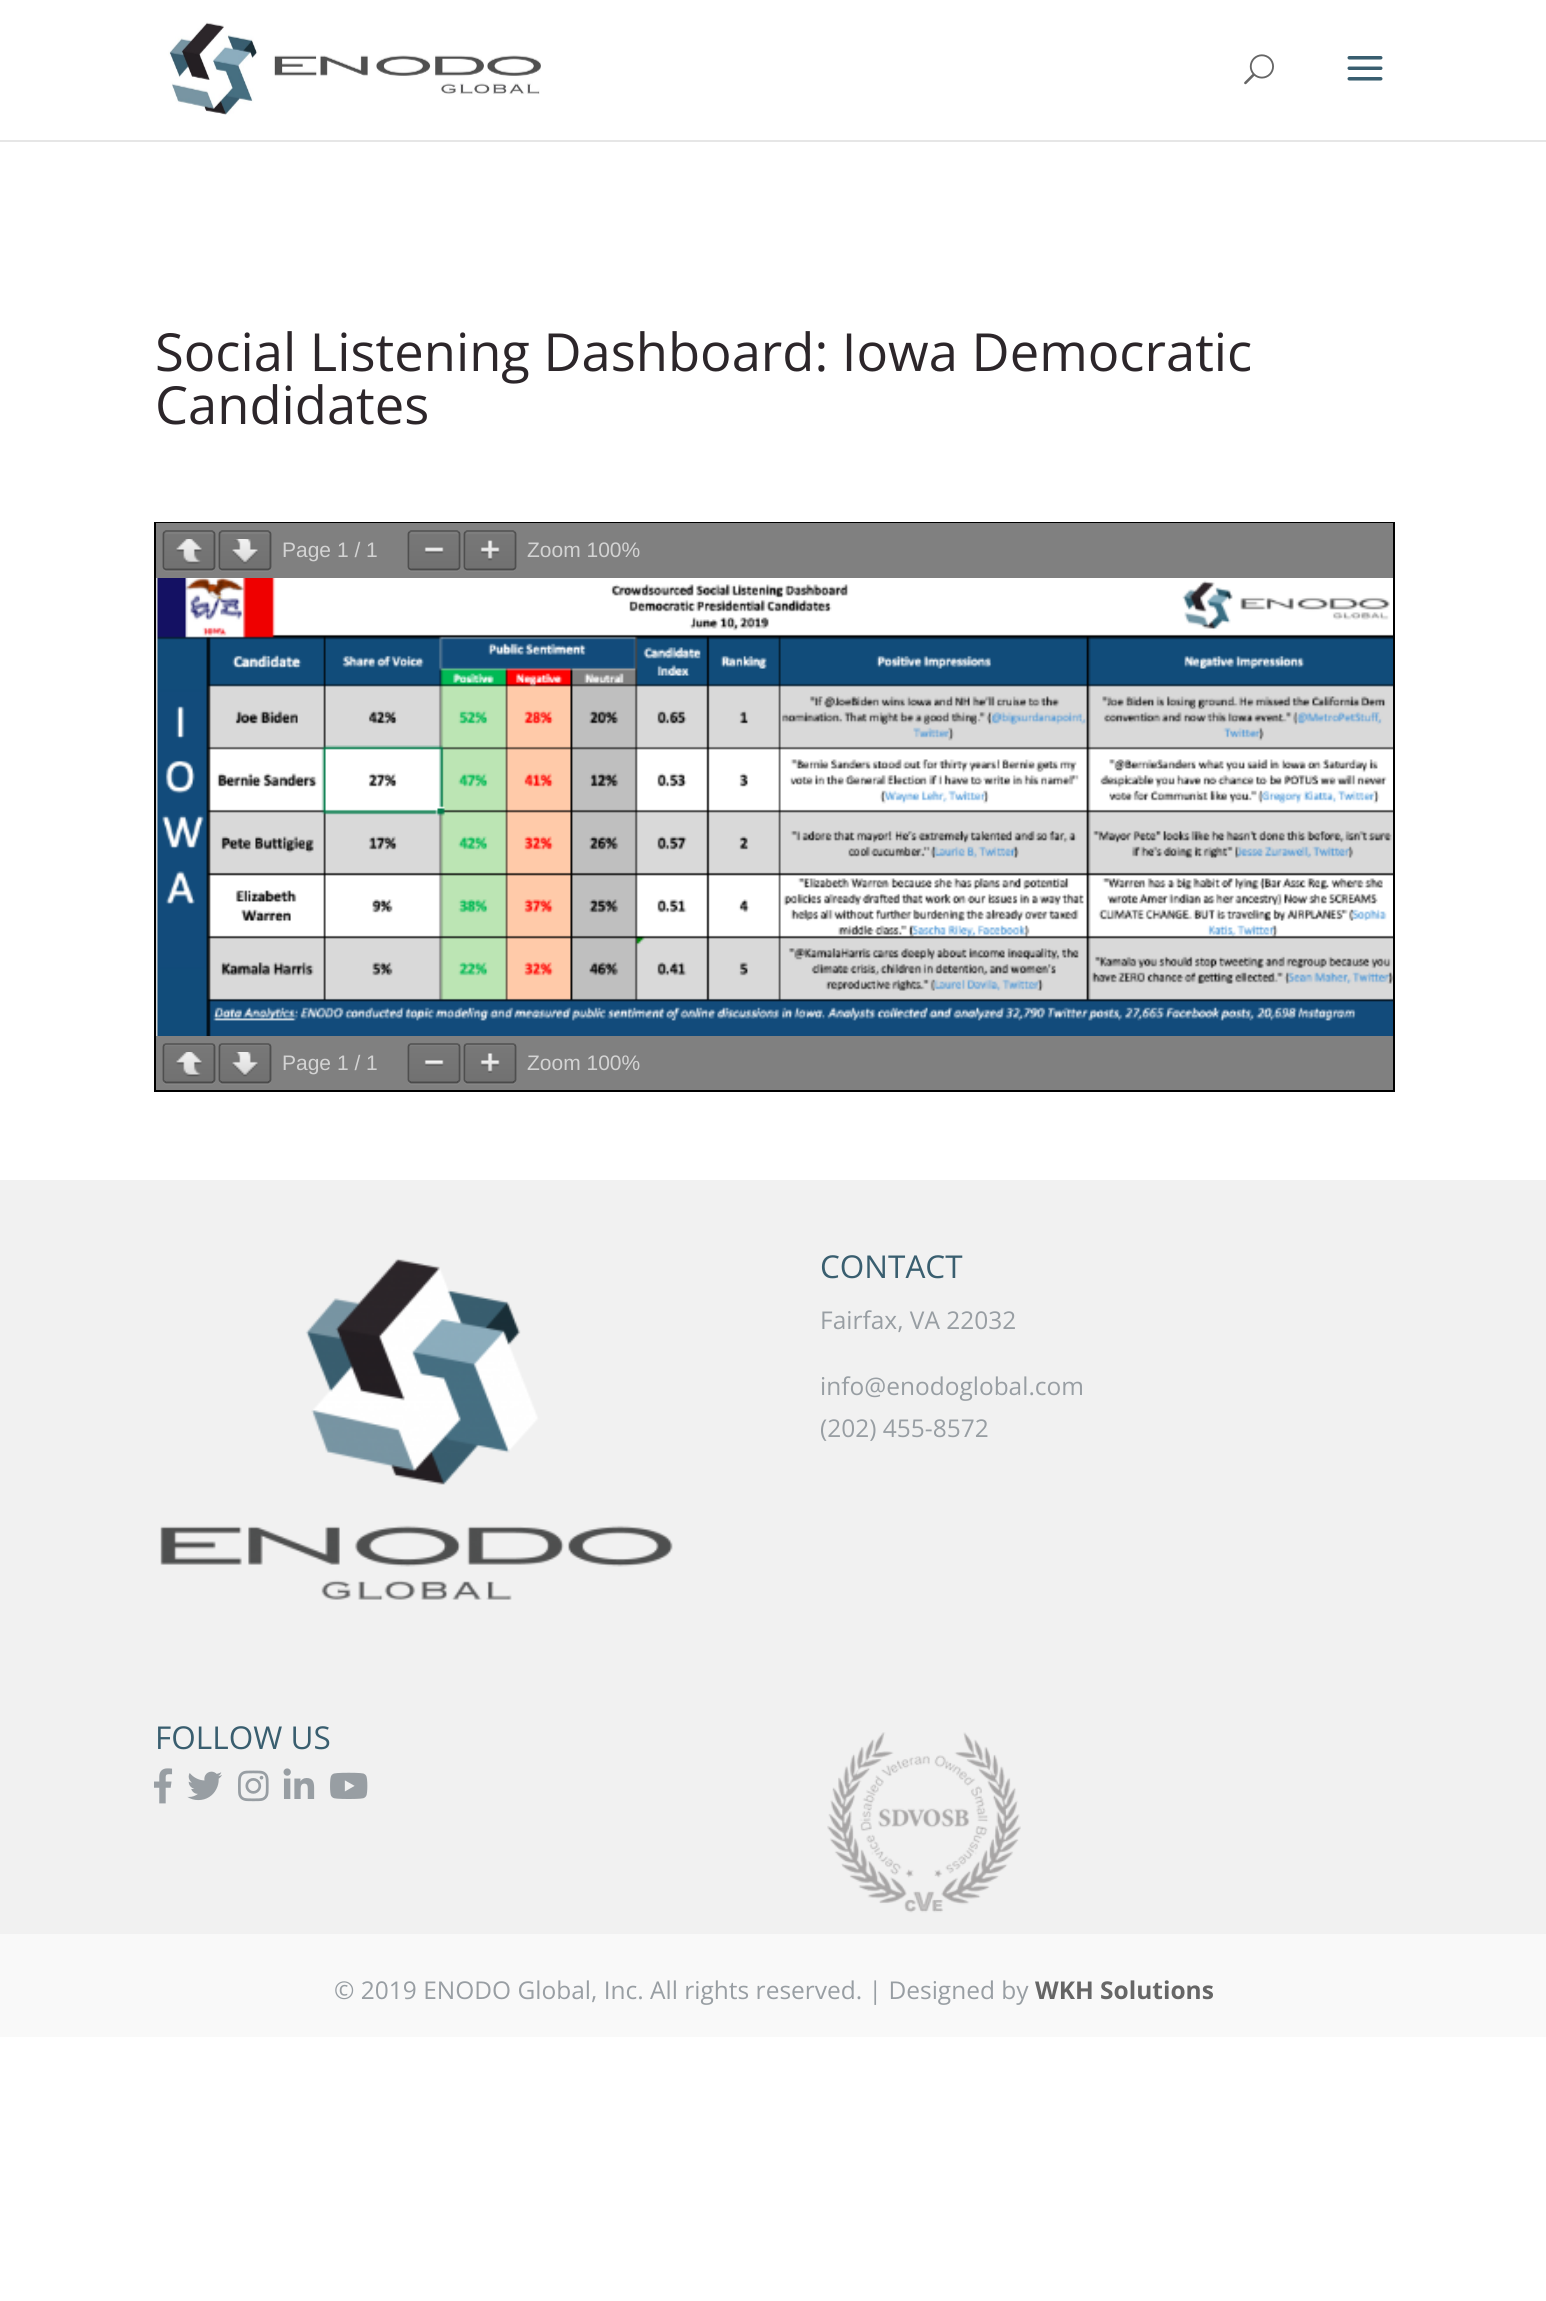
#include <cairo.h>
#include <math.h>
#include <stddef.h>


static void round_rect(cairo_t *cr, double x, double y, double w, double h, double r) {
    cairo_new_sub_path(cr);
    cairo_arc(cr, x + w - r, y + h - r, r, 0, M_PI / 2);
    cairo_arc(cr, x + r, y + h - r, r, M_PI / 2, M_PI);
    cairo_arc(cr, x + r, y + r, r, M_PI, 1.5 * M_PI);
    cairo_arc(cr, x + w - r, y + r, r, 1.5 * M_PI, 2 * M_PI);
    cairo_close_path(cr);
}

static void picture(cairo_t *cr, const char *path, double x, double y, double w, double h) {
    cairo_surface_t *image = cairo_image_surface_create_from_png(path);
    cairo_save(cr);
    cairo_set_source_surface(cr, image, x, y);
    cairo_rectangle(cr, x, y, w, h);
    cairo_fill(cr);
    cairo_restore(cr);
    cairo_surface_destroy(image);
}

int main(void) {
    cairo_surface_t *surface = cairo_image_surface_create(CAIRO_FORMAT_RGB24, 1546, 2301);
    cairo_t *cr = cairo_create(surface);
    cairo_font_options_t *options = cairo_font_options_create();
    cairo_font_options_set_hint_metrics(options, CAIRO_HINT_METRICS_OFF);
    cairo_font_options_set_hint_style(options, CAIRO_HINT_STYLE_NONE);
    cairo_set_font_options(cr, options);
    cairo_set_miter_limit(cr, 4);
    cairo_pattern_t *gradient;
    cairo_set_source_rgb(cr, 1, 1, 1);
    cairo_paint(cr);
    cairo_set_source_rgb(cr, 0.902, 0.902, 0.902);
    cairo_rectangle(cr, 0, 140, 1546, 2);
    cairo_fill(cr);
    picture(cr, "img1.png", 168, 22, 373, 93);
    picture(cr, "img2.png", 1244, 54, 30, 31);
    picture(cr, "img3.png", 1347, 56, 36, 25);
    cairo_select_font_face(cr, "Open Sans", CAIRO_FONT_SLANT_NORMAL, CAIRO_FONT_WEIGHT_NORMAL);
    cairo_set_font_size(cr, 52.5);
    cairo_set_source_rgb(cr, 0.173, 0.149, 0.165);
    cairo_move_to(cr, 155, 371);
    cairo_show_text(cr, "Social Listening Dashboard: Iowa Democratic");
    cairo_move_to(cr, 155, 424);
    cairo_show_text(cr, "Candidates");
    cairo_set_source_rgb(cr, 0.827, 0.827, 0.827);
    cairo_rectangle(cr, 156, 578, 2, 458);
    cairo_fill(cr);
    cairo_rectangle(cr, 155, 523, 1239, 568);
    cairo_set_source_rgb(cr, 0, 0, 0);
    cairo_stroke(cr);
    cairo_set_source_rgb(cr, 0.502, 0.502, 0.502);
    cairo_rectangle(cr, 156, 523, 1237, 55);
    cairo_fill(cr);
    cairo_set_source_rgb(cr, 0.525, 0.525, 0.525);
    cairo_new_path(cr);
    cairo_move_to(cr, 163, 568);
    cairo_curve_to(cr, 163, 570, 165, 572, 167, 572);
    cairo_line_to(cr, 211, 572);
    cairo_curve_to(cr, 213, 572, 215, 570, 215, 568);
    cairo_curve_to(cr, 214, 570, 213, 570, 212, 570);
    cairo_line_to(cr, 166, 570);
    cairo_curve_to(cr, 165, 570, 164, 570, 163, 568);
    cairo_close_path(cr);
    cairo_fill(cr);
    gradient = cairo_pattern_create_linear(189, 532, 189, 569);
    cairo_pattern_add_color_stop_rgba(gradient, 0, 0.471, 0.471, 0.471, 1);
    cairo_pattern_add_color_stop_rgba(gradient, 1, 0.443, 0.443, 0.443, 1);
    cairo_set_source(cr, gradient);
    cairo_pattern_destroy(gradient);
    round_rect(cr, 165, 532, 49, 37, 2);
    cairo_fill(cr);
    cairo_set_source_rgb(cr, 0.498, 0.498, 0.498);
    cairo_new_path(cr);
    cairo_move_to(cr, 166, 534);
    cairo_line_to(cr, 212, 534);
    cairo_curve_to(cr, 213, 534, 214, 535, 214, 536);
    cairo_curve_to(cr, 214, 530, 211, 532, 204, 532);
    cairo_line_to(cr, 190, 532);
    cairo_curve_to(cr, 186, 532, 167, 531, 166, 533);
    cairo_line_to(cr, 165, 534);
    cairo_close_path(cr);
    cairo_fill(cr);
    cairo_new_path(cr);
    cairo_move_to(cr, 164.5, 532);
    cairo_line_to(cr, 166, 531);
    cairo_line_to(cr, 212, 531);
    cairo_line_to(cr, 213.5, 532);
    cairo_set_source_rgb(cr, 0.341, 0.341, 0.341);
    cairo_set_line_width(cr, 1.8);
    cairo_stroke(cr);
    cairo_new_path(cr);
    cairo_move_to(cr, 213.5, 532);
    cairo_curve_to(cr, 214, 532.5, 214.5, 533, 214.5, 534);
    cairo_line_to(cr, 214.5, 567);
    cairo_curve_to(cr, 214.5, 567.5, 214, 568.5, 213.5, 569);
    cairo_set_source_rgba(cr, 0, 0, 0, 0.38);
    cairo_stroke(cr);
    cairo_new_path(cr);
    cairo_move_to(cr, 213.5, 569);
    cairo_line_to(cr, 212, 569.5);
    cairo_line_to(cr, 166, 569.5);
    cairo_line_to(cr, 164.5, 569);
    cairo_set_source_rgba(cr, 0, 0, 0, 0.42);
    cairo_stroke(cr);
    cairo_new_path(cr);
    cairo_move_to(cr, 164.5, 569);
    cairo_curve_to(cr, 164, 568.5, 163.5, 567.5, 163.5, 567);
    cairo_line_to(cr, 163.5, 534);
    cairo_curve_to(cr, 163.5, 533, 164, 532.5, 164.5, 532);
    cairo_set_source_rgba(cr, 0, 0, 0, 0.38);
    cairo_stroke(cr);
    picture(cr, "img4.png", 176, 539, 26, 25);
    cairo_set_source_rgb(cr, 0.525, 0.525, 0.525);
    cairo_new_path(cr);
    cairo_move_to(cr, 219, 568);
    cairo_curve_to(cr, 219, 570, 221, 572, 223, 572);
    cairo_line_to(cr, 267, 572);
    cairo_curve_to(cr, 269, 572, 271, 570, 271, 568);
    cairo_curve_to(cr, 270, 570, 269, 570, 268, 570);
    cairo_line_to(cr, 222, 570);
    cairo_curve_to(cr, 221, 570, 220, 570, 219, 568);
    cairo_close_path(cr);
    cairo_fill(cr);
    gradient = cairo_pattern_create_linear(245, 532, 245, 569);
    cairo_pattern_add_color_stop_rgba(gradient, 0, 0.471, 0.471, 0.471, 1);
    cairo_pattern_add_color_stop_rgba(gradient, 1, 0.443, 0.443, 0.443, 1);
    cairo_set_source(cr, gradient);
    cairo_pattern_destroy(gradient);
    round_rect(cr, 221, 532, 49, 37, 2);
    cairo_fill(cr);
    cairo_set_source_rgb(cr, 0.498, 0.498, 0.498);
    cairo_new_path(cr);
    cairo_move_to(cr, 222, 534);
    cairo_line_to(cr, 268, 534);
    cairo_curve_to(cr, 269, 534, 270, 535, 270, 536);
    cairo_curve_to(cr, 270, 530, 267, 532, 260, 532);
    cairo_line_to(cr, 246, 532);
    cairo_curve_to(cr, 242, 532, 223, 531, 222, 533);
    cairo_line_to(cr, 221, 534);
    cairo_close_path(cr);
    cairo_fill(cr);
    cairo_new_path(cr);
    cairo_move_to(cr, 220.5, 532);
    cairo_line_to(cr, 222, 531);
    cairo_line_to(cr, 268, 531);
    cairo_line_to(cr, 269.5, 532);
    cairo_set_source_rgb(cr, 0.341, 0.341, 0.341);
    cairo_stroke(cr);
    cairo_new_path(cr);
    cairo_move_to(cr, 269.5, 532);
    cairo_curve_to(cr, 270, 532.5, 270.5, 533, 270.5, 534);
    cairo_line_to(cr, 270.5, 567);
    cairo_curve_to(cr, 270.5, 567.5, 270, 568.5, 269.5, 569);
    cairo_set_source_rgba(cr, 0, 0, 0, 0.38);
    cairo_stroke(cr);
    cairo_new_path(cr);
    cairo_move_to(cr, 269.5, 569);
    cairo_line_to(cr, 268, 569.5);
    cairo_line_to(cr, 222, 569.5);
    cairo_line_to(cr, 220.5, 569);
    cairo_set_source_rgba(cr, 0, 0, 0, 0.42);
    cairo_stroke(cr);
    cairo_new_path(cr);
    cairo_move_to(cr, 220.5, 569);
    cairo_curve_to(cr, 220, 568.5, 219.5, 567.5, 219.5, 567);
    cairo_line_to(cr, 219.5, 534);
    cairo_curve_to(cr, 219.5, 533, 220, 532.5, 220.5, 532);
    cairo_set_source_rgba(cr, 0, 0, 0, 0.38);
    cairo_stroke(cr);
    picture(cr, "img5.png", 232, 539, 26, 25);
    cairo_select_font_face(cr, "Liberation Sans", CAIRO_FONT_SLANT_NORMAL, CAIRO_FONT_WEIGHT_NORMAL);
    cairo_set_font_size(cr, 21);
    cairo_set_source_rgb(cr, 0.827, 0.827, 0.827);
    cairo_move_to(cr, 282, 557);
    cairo_show_text(cr, "Page 1 / 1");
    cairo_set_source_rgb(cr, 0.525, 0.525, 0.525);
    cairo_new_path(cr);
    cairo_move_to(cr, 408, 568);
    cairo_curve_to(cr, 408, 570, 410, 572, 412, 572);
    cairo_line_to(cr, 456, 572);
    cairo_curve_to(cr, 458, 572, 460, 570, 460, 568);
    cairo_curve_to(cr, 459, 570, 458, 570, 457, 570);
    cairo_line_to(cr, 411, 570);
    cairo_curve_to(cr, 410, 570, 409, 570, 408, 568);
    cairo_close_path(cr);
    cairo_fill(cr);
    gradient = cairo_pattern_create_linear(434, 532, 434, 569);
    cairo_pattern_add_color_stop_rgba(gradient, 0, 0.471, 0.471, 0.471, 1);
    cairo_pattern_add_color_stop_rgba(gradient, 1, 0.443, 0.443, 0.443, 1);
    cairo_set_source(cr, gradient);
    cairo_pattern_destroy(gradient);
    round_rect(cr, 410, 532, 49, 37, 2);
    cairo_fill(cr);
    cairo_set_source_rgba(cr, 1, 1, 1, 0.05);
    cairo_new_path(cr);
    cairo_move_to(cr, 411, 534);
    cairo_line_to(cr, 457, 534);
    cairo_curve_to(cr, 458, 534, 458, 535, 458, 536);
    cairo_line_to(cr, 458, 569);
    cairo_curve_to(cr, 460, 568, 459, 562, 459, 562);
    cairo_line_to(cr, 459, 550);
    cairo_curve_to(cr, 459, 528, 464, 532, 442, 532);
    cairo_line_to(cr, 420, 532);
    cairo_curve_to(cr, 413, 532, 410, 530, 410, 536);
    cairo_curve_to(cr, 410, 535, 410, 534, 411, 534);
    cairo_close_path(cr);
    cairo_fill(cr);
    cairo_new_path(cr);
    cairo_move_to(cr, 409.5, 532);
    cairo_line_to(cr, 411, 531);
    cairo_line_to(cr, 457, 531);
    cairo_line_to(cr, 458.5, 532);
    cairo_set_source_rgb(cr, 0.341, 0.341, 0.341);
    cairo_stroke(cr);
    cairo_new_path(cr);
    cairo_move_to(cr, 458.5, 532);
    cairo_curve_to(cr, 459, 532.5, 459.5, 533, 459.5, 534);
    cairo_line_to(cr, 459.5, 567);
    cairo_curve_to(cr, 459.5, 567.5, 459, 568.5, 458.5, 569);
    cairo_set_source_rgba(cr, 0, 0, 0, 0.38);
    cairo_stroke(cr);
    cairo_new_path(cr);
    cairo_move_to(cr, 458.5, 569);
    cairo_line_to(cr, 457, 569.5);
    cairo_line_to(cr, 411, 569.5);
    cairo_line_to(cr, 409.5, 569);
    cairo_set_source_rgba(cr, 0, 0, 0, 0.42);
    cairo_stroke(cr);
    cairo_new_path(cr);
    cairo_move_to(cr, 409.5, 569);
    cairo_curve_to(cr, 409, 568.5, 408.5, 567.5, 408.5, 567);
    cairo_line_to(cr, 408.5, 534);
    cairo_curve_to(cr, 408.5, 533, 409, 532.5, 409.5, 532);
    cairo_set_source_rgba(cr, 0, 0, 0, 0.38);
    cairo_stroke(cr);
    picture(cr, "img6.png", 424, 547, 20, 7);
    cairo_set_source_rgb(cr, 0.525, 0.525, 0.525);
    cairo_new_path(cr);
    cairo_move_to(cr, 464, 568);
    cairo_curve_to(cr, 464, 570, 466, 572, 468, 572);
    cairo_line_to(cr, 512, 572);
    cairo_curve_to(cr, 514, 572, 516, 570, 516, 568);
    cairo_curve_to(cr, 515, 570, 514, 570, 513, 570);
    cairo_line_to(cr, 467, 570);
    cairo_curve_to(cr, 466, 570, 465, 570, 464, 568);
    cairo_close_path(cr);
    cairo_fill(cr);
    gradient = cairo_pattern_create_linear(490, 532, 490, 569);
    cairo_pattern_add_color_stop_rgba(gradient, 0, 0.471, 0.471, 0.471, 1);
    cairo_pattern_add_color_stop_rgba(gradient, 1, 0.443, 0.443, 0.443, 1);
    cairo_set_source(cr, gradient);
    cairo_pattern_destroy(gradient);
    round_rect(cr, 466, 532, 49, 37, 2);
    cairo_fill(cr);
    cairo_set_source_rgba(cr, 1, 1, 1, 0.05);
    cairo_new_path(cr);
    cairo_move_to(cr, 467, 534);
    cairo_line_to(cr, 513, 534);
    cairo_curve_to(cr, 514, 534, 514, 535, 514, 536);
    cairo_line_to(cr, 514, 569);
    cairo_curve_to(cr, 516, 568, 515, 562, 515, 562);
    cairo_line_to(cr, 515, 550);
    cairo_curve_to(cr, 515, 528, 520, 532, 498, 532);
    cairo_line_to(cr, 476, 532);
    cairo_curve_to(cr, 469, 532, 466, 530, 466, 536);
    cairo_curve_to(cr, 466, 535, 466, 534, 467, 534);
    cairo_close_path(cr);
    cairo_fill(cr);
    cairo_new_path(cr);
    cairo_move_to(cr, 465.5, 532);
    cairo_line_to(cr, 467, 531);
    cairo_line_to(cr, 513, 531);
    cairo_line_to(cr, 514.5, 532);
    cairo_set_source_rgb(cr, 0.341, 0.341, 0.341);
    cairo_stroke(cr);
    cairo_new_path(cr);
    cairo_move_to(cr, 514.5, 532);
    cairo_curve_to(cr, 515, 532.5, 515.5, 533, 515.5, 534);
    cairo_line_to(cr, 515.5, 567);
    cairo_curve_to(cr, 515.5, 567.5, 515, 568.5, 514.5, 569);
    cairo_set_source_rgba(cr, 0, 0, 0, 0.38);
    cairo_stroke(cr);
    cairo_new_path(cr);
    cairo_move_to(cr, 514.5, 569);
    cairo_line_to(cr, 513, 569.5);
    cairo_line_to(cr, 467, 569.5);
    cairo_line_to(cr, 465.5, 569);
    cairo_set_source_rgba(cr, 0, 0, 0, 0.42);
    cairo_stroke(cr);
    cairo_new_path(cr);
    cairo_move_to(cr, 465.5, 569);
    cairo_curve_to(cr, 465, 568.5, 464.5, 567.5, 464.5, 567);
    cairo_line_to(cr, 464.5, 534);
    cairo_curve_to(cr, 464.5, 533, 465, 532.5, 465.5, 532);
    cairo_set_source_rgba(cr, 0, 0, 0, 0.38);
    cairo_stroke(cr);
    picture(cr, "img7.png", 480, 540, 20, 21);
    cairo_set_source_rgb(cr, 0.827, 0.827, 0.827);
    cairo_move_to(cr, 527, 557);
    cairo_show_text(cr, "Zoom 100%");
    picture(cr, "img8.png", 157, 578, 1236, 458);
    cairo_set_source_rgb(cr, 0.502, 0.502, 0.502);
    cairo_rectangle(cr, 156, 1036, 1237, 54);
    cairo_fill(cr);
    cairo_set_source_rgb(cr, 0.525, 0.525, 0.525);
    cairo_new_path(cr);
    cairo_move_to(cr, 163, 1081);
    cairo_curve_to(cr, 163, 1083, 165, 1085, 167, 1085);
    cairo_line_to(cr, 211, 1085);
    cairo_curve_to(cr, 213, 1085, 215, 1083, 215, 1081);
    cairo_curve_to(cr, 214, 1082, 213, 1083, 212, 1083);
    cairo_line_to(cr, 166, 1083);
    cairo_curve_to(cr, 165, 1083, 164, 1082, 163, 1081);
    cairo_close_path(cr);
    cairo_fill(cr);
    gradient = cairo_pattern_create_linear(189, 1045, 189, 1082);
    cairo_pattern_add_color_stop_rgba(gradient, 0, 0.471, 0.471, 0.471, 1);
    cairo_pattern_add_color_stop_rgba(gradient, 1, 0.443, 0.443, 0.443, 1);
    cairo_set_source(cr, gradient);
    cairo_pattern_destroy(gradient);
    round_rect(cr, 165, 1045, 49, 37, 2);
    cairo_fill(cr);
    cairo_set_source_rgba(cr, 1, 1, 1, 0.05);
    cairo_new_path(cr);
    cairo_move_to(cr, 166, 1046);
    cairo_line_to(cr, 212, 1046);
    cairo_curve_to(cr, 213, 1046, 214, 1047, 214, 1048);
    cairo_curve_to(cr, 214, 1043, 208, 1045, 204, 1045);
    cairo_line_to(cr, 166, 1045);
    cairo_line_to(cr, 165, 1046);
    cairo_close_path(cr);
    cairo_fill(cr);
    cairo_new_path(cr);
    cairo_move_to(cr, 164.5, 1044.5);
    cairo_line_to(cr, 166, 1044);
    cairo_line_to(cr, 212, 1044);
    cairo_line_to(cr, 213.5, 1044.5);
    cairo_set_source_rgba(cr, 0, 0, 0, 0.32);
    cairo_stroke(cr);
    cairo_new_path(cr);
    cairo_move_to(cr, 213.5, 1044.5);
    cairo_curve_to(cr, 214, 1045, 214.5, 1046, 214.5, 1046.5);
    cairo_line_to(cr, 214.5, 1080);
    cairo_curve_to(cr, 214.5, 1080.5, 214, 1081, 213.5, 1081.5);
    cairo_set_source_rgba(cr, 0, 0, 0, 0.38);
    cairo_stroke(cr);
    cairo_new_path(cr);
    cairo_move_to(cr, 213.5, 1081.5);
    cairo_line_to(cr, 212, 1082.5);
    cairo_line_to(cr, 166, 1082.5);
    cairo_line_to(cr, 164.5, 1081.5);
    cairo_set_source_rgba(cr, 0, 0, 0, 0.42);
    cairo_stroke(cr);
    cairo_new_path(cr);
    cairo_move_to(cr, 164.5, 1081.5);
    cairo_curve_to(cr, 164, 1081, 163.5, 1080.5, 163.5, 1080);
    cairo_line_to(cr, 163.5, 1046.5);
    cairo_curve_to(cr, 163.5, 1046, 164, 1045, 164.5, 1044.5);
    cairo_set_source_rgba(cr, 0, 0, 0, 0.38);
    cairo_stroke(cr);
    picture(cr, "img9.png", 176, 1052, 26, 25);
    cairo_set_source_rgb(cr, 0.525, 0.525, 0.525);
    cairo_new_path(cr);
    cairo_move_to(cr, 219, 1081);
    cairo_curve_to(cr, 219, 1083, 221, 1085, 223, 1085);
    cairo_line_to(cr, 267, 1085);
    cairo_curve_to(cr, 269, 1085, 271, 1083, 271, 1081);
    cairo_curve_to(cr, 270, 1082, 269, 1083, 268, 1083);
    cairo_line_to(cr, 222, 1083);
    cairo_curve_to(cr, 221, 1083, 220, 1082, 219, 1081);
    cairo_close_path(cr);
    cairo_fill(cr);
    gradient = cairo_pattern_create_linear(245, 1045, 245, 1082);
    cairo_pattern_add_color_stop_rgba(gradient, 0, 0.471, 0.471, 0.471, 1);
    cairo_pattern_add_color_stop_rgba(gradient, 1, 0.443, 0.443, 0.443, 1);
    cairo_set_source(cr, gradient);
    cairo_pattern_destroy(gradient);
    round_rect(cr, 221, 1045, 49, 37, 2);
    cairo_fill(cr);
    cairo_set_source_rgba(cr, 1, 1, 1, 0.05);
    cairo_new_path(cr);
    cairo_move_to(cr, 222, 1046);
    cairo_line_to(cr, 268, 1046);
    cairo_curve_to(cr, 269, 1046, 270, 1047, 270, 1048);
    cairo_curve_to(cr, 270, 1043, 264, 1045, 260, 1045);
    cairo_line_to(cr, 222, 1045);
    cairo_line_to(cr, 221, 1046);
    cairo_close_path(cr);
    cairo_fill(cr);
    cairo_new_path(cr);
    cairo_move_to(cr, 220.5, 1044.5);
    cairo_line_to(cr, 222, 1044);
    cairo_line_to(cr, 268, 1044);
    cairo_line_to(cr, 269.5, 1044.5);
    cairo_set_source_rgba(cr, 0, 0, 0, 0.32);
    cairo_stroke(cr);
    cairo_new_path(cr);
    cairo_move_to(cr, 269.5, 1044.5);
    cairo_curve_to(cr, 270, 1045, 270.5, 1046, 270.5, 1046.5);
    cairo_line_to(cr, 270.5, 1080);
    cairo_curve_to(cr, 270.5, 1080.5, 270, 1081, 269.5, 1081.5);
    cairo_set_source_rgba(cr, 0, 0, 0, 0.38);
    cairo_stroke(cr);
    cairo_new_path(cr);
    cairo_move_to(cr, 269.5, 1081.5);
    cairo_line_to(cr, 268, 1082.5);
    cairo_line_to(cr, 222, 1082.5);
    cairo_line_to(cr, 220.5, 1081.5);
    cairo_set_source_rgba(cr, 0, 0, 0, 0.42);
    cairo_stroke(cr);
    cairo_new_path(cr);
    cairo_move_to(cr, 220.5, 1081.5);
    cairo_curve_to(cr, 220, 1081, 219.5, 1080.5, 219.5, 1080);
    cairo_line_to(cr, 219.5, 1046.5);
    cairo_curve_to(cr, 219.5, 1046, 220, 1045, 220.5, 1044.5);
    cairo_set_source_rgba(cr, 0, 0, 0, 0.38);
    cairo_stroke(cr);
    picture(cr, "img10.png", 232, 1052, 26, 25);
    cairo_set_source_rgb(cr, 0.827, 0.827, 0.827);
    cairo_move_to(cr, 282, 1070);
    cairo_show_text(cr, "Page 1 / 1");
    cairo_set_source_rgb(cr, 0.525, 0.525, 0.525);
    cairo_new_path(cr);
    cairo_move_to(cr, 408, 1081);
    cairo_curve_to(cr, 408, 1083, 410, 1085, 412, 1085);
    cairo_line_to(cr, 456, 1085);
    cairo_curve_to(cr, 458, 1085, 460, 1083, 460, 1081);
    cairo_curve_to(cr, 459, 1082, 458, 1083, 457, 1083);
    cairo_line_to(cr, 411, 1083);
    cairo_curve_to(cr, 410, 1083, 409, 1082, 408, 1081);
    cairo_close_path(cr);
    cairo_fill(cr);
    gradient = cairo_pattern_create_linear(434, 1045, 434, 1082);
    cairo_pattern_add_color_stop_rgba(gradient, 0, 0.471, 0.471, 0.471, 1);
    cairo_pattern_add_color_stop_rgba(gradient, 1, 0.443, 0.443, 0.443, 1);
    cairo_set_source(cr, gradient);
    cairo_pattern_destroy(gradient);
    round_rect(cr, 410, 1045, 49, 37, 2);
    cairo_fill(cr);
    cairo_set_source_rgba(cr, 1, 1, 1, 0.05);
    cairo_new_path(cr);
    cairo_move_to(cr, 411, 1046);
    cairo_line_to(cr, 457, 1046);
    cairo_curve_to(cr, 458, 1046, 458, 1047, 458, 1048);
    cairo_line_to(cr, 458, 1082);
    cairo_curve_to(cr, 460, 1081, 459, 1075, 459, 1074);
    cairo_line_to(cr, 459, 1064);
    cairo_curve_to(cr, 459, 1041, 464, 1045, 442, 1045);
    cairo_line_to(cr, 411, 1045);
    cairo_curve_to(cr, 410, 1046, 410, 1047, 410, 1048);
    cairo_curve_to(cr, 410, 1047, 410, 1046, 411, 1046);
    cairo_close_path(cr);
    cairo_fill(cr);
    cairo_new_path(cr);
    cairo_move_to(cr, 409.5, 1044.5);
    cairo_line_to(cr, 411, 1044);
    cairo_line_to(cr, 457, 1044);
    cairo_line_to(cr, 458.5, 1044.5);
    cairo_set_source_rgb(cr, 0.341, 0.341, 0.341);
    cairo_stroke(cr);
    cairo_new_path(cr);
    cairo_move_to(cr, 458.5, 1044.5);
    cairo_curve_to(cr, 459, 1045, 459.5, 1046, 459.5, 1046.5);
    cairo_line_to(cr, 459.5, 1080);
    cairo_curve_to(cr, 459.5, 1080.5, 459, 1081, 458.5, 1081.5);
    cairo_set_source_rgba(cr, 0, 0, 0, 0.38);
    cairo_stroke(cr);
    cairo_new_path(cr);
    cairo_move_to(cr, 458.5, 1081.5);
    cairo_line_to(cr, 457, 1082.5);
    cairo_line_to(cr, 411, 1082.5);
    cairo_line_to(cr, 409.5, 1081.5);
    cairo_set_source_rgba(cr, 0, 0, 0, 0.42);
    cairo_stroke(cr);
    cairo_new_path(cr);
    cairo_move_to(cr, 409.5, 1081.5);
    cairo_curve_to(cr, 409, 1081, 408.5, 1080.5, 408.5, 1080);
    cairo_line_to(cr, 408.5, 1046.5);
    cairo_curve_to(cr, 408.5, 1046, 409, 1045, 409.5, 1044.5);
    cairo_set_source_rgba(cr, 0, 0, 0, 0.38);
    cairo_stroke(cr);
    picture(cr, "img11.png", 424, 1060, 20, 6);
    cairo_set_source_rgb(cr, 0.525, 0.525, 0.525);
    cairo_new_path(cr);
    cairo_move_to(cr, 464, 1081);
    cairo_curve_to(cr, 464, 1083, 466, 1085, 468, 1085);
    cairo_line_to(cr, 512, 1085);
    cairo_curve_to(cr, 514, 1085, 516, 1083, 516, 1081);
    cairo_curve_to(cr, 515, 1082, 514, 1083, 513, 1083);
    cairo_line_to(cr, 467, 1083);
    cairo_curve_to(cr, 466, 1083, 465, 1082, 464, 1081);
    cairo_close_path(cr);
    cairo_fill(cr);
    gradient = cairo_pattern_create_linear(490, 1045, 490, 1082);
    cairo_pattern_add_color_stop_rgba(gradient, 0, 0.471, 0.471, 0.471, 1);
    cairo_pattern_add_color_stop_rgba(gradient, 1, 0.443, 0.443, 0.443, 1);
    cairo_set_source(cr, gradient);
    cairo_pattern_destroy(gradient);
    round_rect(cr, 466, 1045, 49, 37, 2);
    cairo_fill(cr);
    cairo_set_source_rgba(cr, 1, 1, 1, 0.05);
    cairo_new_path(cr);
    cairo_move_to(cr, 467, 1046);
    cairo_line_to(cr, 513, 1046);
    cairo_curve_to(cr, 514, 1046, 514, 1047, 514, 1048);
    cairo_line_to(cr, 514, 1082);
    cairo_curve_to(cr, 516, 1081, 515, 1075, 515, 1074);
    cairo_line_to(cr, 515, 1064);
    cairo_curve_to(cr, 515, 1041, 520, 1045, 498, 1045);
    cairo_line_to(cr, 467, 1045);
    cairo_curve_to(cr, 466, 1046, 466, 1047, 466, 1048);
    cairo_curve_to(cr, 466, 1047, 466, 1046, 467, 1046);
    cairo_close_path(cr);
    cairo_fill(cr);
    cairo_new_path(cr);
    cairo_move_to(cr, 465.5, 1044.5);
    cairo_line_to(cr, 467, 1044);
    cairo_line_to(cr, 513, 1044);
    cairo_line_to(cr, 514.5, 1044.5);
    cairo_set_source_rgb(cr, 0.341, 0.341, 0.341);
    cairo_stroke(cr);
    cairo_new_path(cr);
    cairo_move_to(cr, 514.5, 1044.5);
    cairo_curve_to(cr, 515, 1045, 515.5, 1046, 515.5, 1046.5);
    cairo_line_to(cr, 515.5, 1080);
    cairo_curve_to(cr, 515.5, 1080.5, 515, 1081, 514.5, 1081.5);
    cairo_set_source_rgba(cr, 0, 0, 0, 0.38);
    cairo_stroke(cr);
    cairo_new_path(cr);
    cairo_move_to(cr, 514.5, 1081.5);
    cairo_line_to(cr, 513, 1082.5);
    cairo_line_to(cr, 467, 1082.5);
    cairo_line_to(cr, 465.5, 1081.5);
    cairo_set_source_rgba(cr, 0, 0, 0, 0.42);
    cairo_stroke(cr);
    cairo_new_path(cr);
    cairo_move_to(cr, 465.5, 1081.5);
    cairo_curve_to(cr, 465, 1081, 464.5, 1080.5, 464.5, 1080);
    cairo_line_to(cr, 464.5, 1046.5);
    cairo_curve_to(cr, 464.5, 1046, 465, 1045, 465.5, 1044.5);
    cairo_set_source_rgba(cr, 0, 0, 0, 0.38);
    cairo_stroke(cr);
    picture(cr, "img12.png", 480, 1053, 20, 20);
    cairo_set_source_rgb(cr, 0.827, 0.827, 0.827);
    cairo_move_to(cr, 527, 1070);
    cairo_show_text(cr, "Zoom 100%");
    cairo_set_source_rgb(cr, 0.945, 0.945, 0.945);
    cairo_rectangle(cr, 0, 1180, 1546, 754);
    cairo_fill(cr);
    picture(cr, "img13.png", 160, 1258, 513, 342);
    cairo_select_font_face(cr, "Open Sans", CAIRO_FONT_SLANT_NORMAL, CAIRO_FONT_WEIGHT_NORMAL);
    cairo_set_font_size(cr, 31.5);
    cairo_set_source_rgb(cr, 0.224, 0.369, 0.435);
    cairo_move_to(cr, 820, 1278);
    cairo_show_text(cr, "CONTACT");
    cairo_set_font_size(cr, 24.5);
    cairo_set_source_rgb(cr, 0.596, 0.62, 0.639);
    cairo_move_to(cr, 820, 1329);
    cairo_show_text(cr, "Fairfax, VA 22032");
    cairo_move_to(cr, 820, 1395);
    cairo_show_text(cr, "info@enodoglobal.com");
    cairo_move_to(cr, 820, 1437);
    cairo_show_text(cr, "(202) 455-8572");
    cairo_set_font_size(cr, 31.5);
    cairo_set_source_rgb(cr, 0.224, 0.369, 0.435);
    cairo_move_to(cr, 155, 1749);
    cairo_show_text(cr, "FOLLOW US");
    picture(cr, "img14.png", 154, 1768, 19, 36);
    picture(cr, "img15.png", 187, 1771, 35, 30);
    picture(cr, "img16.png", 238, 1770, 31, 32);
    picture(cr, "img17.png", 283, 1768, 32, 31);
    picture(cr, "img18.png", 330, 1772, 38, 27);
    picture(cr, "img19.png", 827, 1732, 194, 181);
    cairo_set_source_rgb(cr, 0.976, 0.973, 0.976);
    cairo_rectangle(cr, 0, 1934, 1546, 103);
    cairo_fill(cr);
    cairo_set_font_size(cr, 24.5);
    cairo_set_source_rgb(cr, 0.596, 0.62, 0.639);
    cairo_move_to(cr, 334, 1999);
    cairo_show_text(cr, "© 2019 ENODO Global, Inc. All rights reserved. | Designed by");
    cairo_select_font_face(cr, "Open Sans", CAIRO_FONT_SLANT_NORMAL, CAIRO_FONT_WEIGHT_BOLD);
    cairo_set_source_rgb(cr, 0.4, 0.4, 0.4);
    cairo_move_to(cr, 1035, 1999);
    cairo_show_text(cr, "WKH Solutions");
    cairo_surface_write_to_png(surface, "page.png");
    cairo_font_options_destroy(options);
    cairo_destroy(cr);
    cairo_surface_destroy(surface);
    return 0;
}
